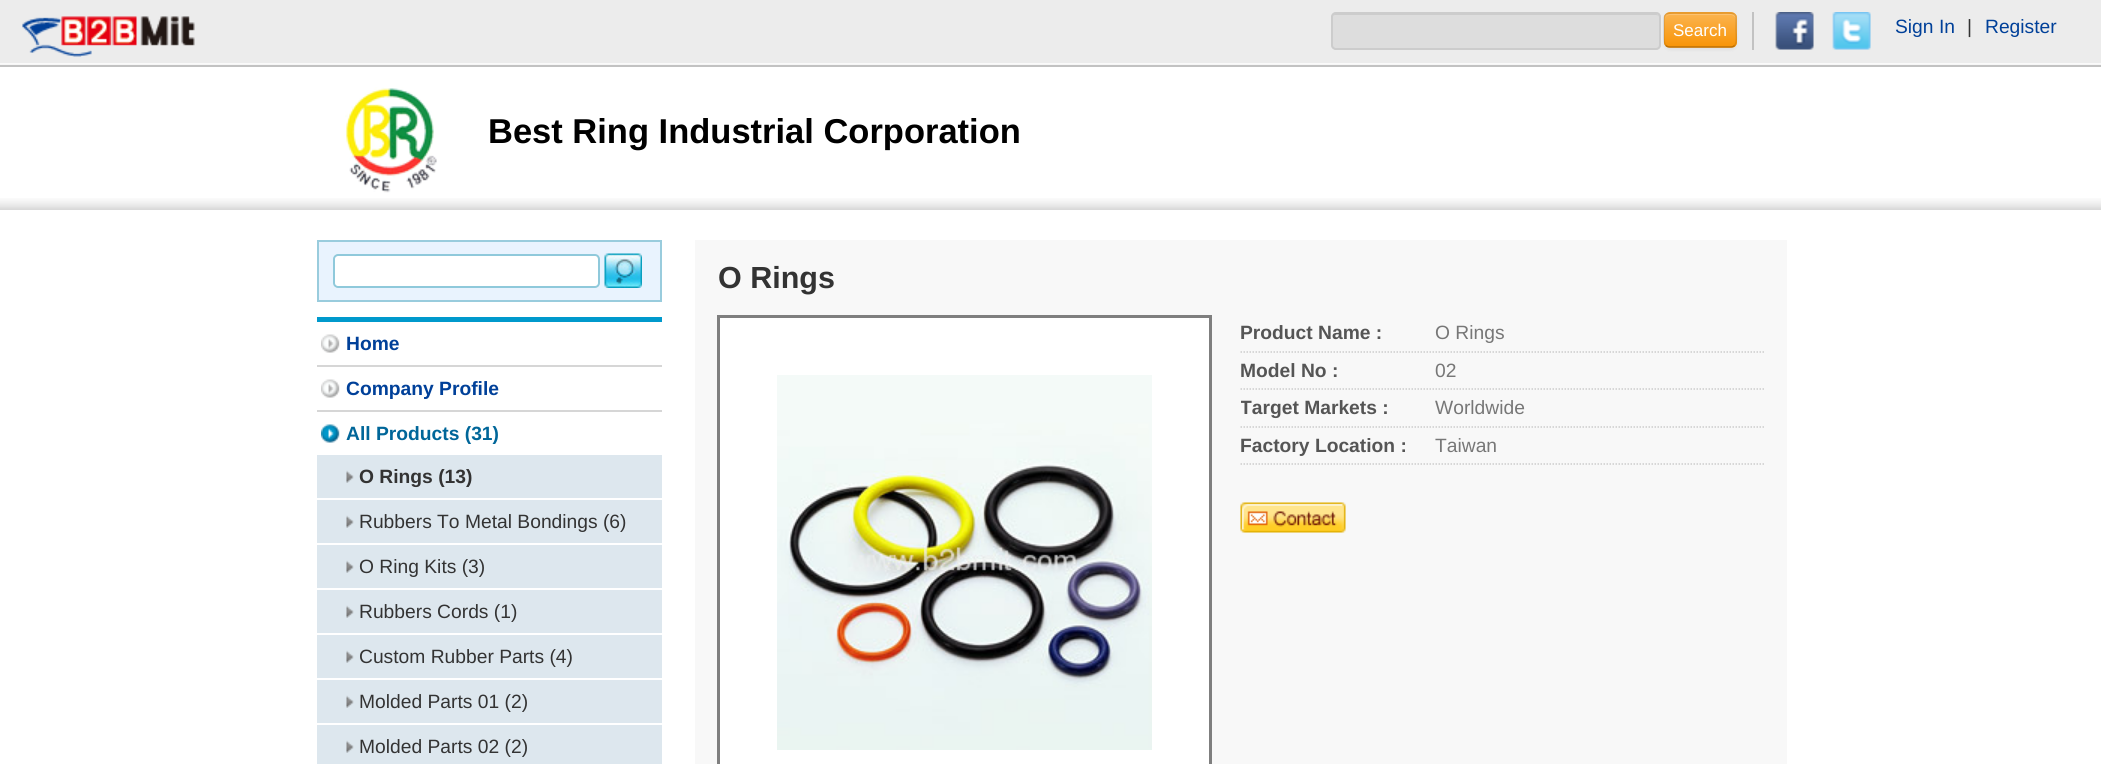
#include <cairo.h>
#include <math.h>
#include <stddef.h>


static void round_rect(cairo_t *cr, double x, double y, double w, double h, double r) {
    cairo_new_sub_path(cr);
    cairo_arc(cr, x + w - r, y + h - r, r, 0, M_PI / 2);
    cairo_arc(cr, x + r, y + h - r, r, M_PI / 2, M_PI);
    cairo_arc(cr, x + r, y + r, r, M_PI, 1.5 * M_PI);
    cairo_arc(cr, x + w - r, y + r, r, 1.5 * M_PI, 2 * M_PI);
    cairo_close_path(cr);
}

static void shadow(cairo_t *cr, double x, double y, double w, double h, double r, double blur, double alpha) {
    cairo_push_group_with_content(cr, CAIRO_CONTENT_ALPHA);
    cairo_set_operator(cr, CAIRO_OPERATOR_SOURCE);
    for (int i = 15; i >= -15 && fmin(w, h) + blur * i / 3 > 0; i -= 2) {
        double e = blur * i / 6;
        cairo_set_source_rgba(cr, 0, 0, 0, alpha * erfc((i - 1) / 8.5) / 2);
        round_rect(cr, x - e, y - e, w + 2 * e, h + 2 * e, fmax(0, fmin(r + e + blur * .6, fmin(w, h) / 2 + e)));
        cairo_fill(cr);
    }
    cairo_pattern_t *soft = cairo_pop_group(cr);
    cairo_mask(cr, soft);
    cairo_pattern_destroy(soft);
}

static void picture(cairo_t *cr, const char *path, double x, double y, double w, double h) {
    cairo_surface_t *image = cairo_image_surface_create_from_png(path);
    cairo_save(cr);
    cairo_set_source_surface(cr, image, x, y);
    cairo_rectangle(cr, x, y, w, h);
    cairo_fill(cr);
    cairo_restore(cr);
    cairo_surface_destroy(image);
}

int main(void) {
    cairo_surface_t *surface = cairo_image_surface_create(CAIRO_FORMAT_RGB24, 2101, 764);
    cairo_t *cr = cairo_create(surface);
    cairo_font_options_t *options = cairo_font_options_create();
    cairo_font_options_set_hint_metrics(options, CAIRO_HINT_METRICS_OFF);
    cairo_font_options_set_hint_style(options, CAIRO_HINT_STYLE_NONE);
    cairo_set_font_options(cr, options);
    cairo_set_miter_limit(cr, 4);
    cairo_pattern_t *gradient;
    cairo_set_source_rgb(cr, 1, 1, 1);
    cairo_paint(cr);
    cairo_set_source_rgb(cr, 0.922, 0.922, 0.922);
    cairo_rectangle(cr, 0, 0, 2101, 65);
    cairo_fill(cr);
    picture(cr, "img1.png", 0, 63, 2101, 2);
    cairo_set_source_rgb(cr, 0.761, 0.761, 0.761);
    cairo_rectangle(cr, 0, 65, 2101, 2);
    cairo_fill(cr);
    picture(cr, "img2.png", 22, 16, 173, 41);
    cairo_set_source_rgb(cr, 0.867, 0.867, 0.867);
    round_rect(cr, 1331, 12, 330, 38, 5);
    cairo_fill(cr);
    cairo_set_source_rgb(cr, 0.8, 0.8, 0.8);
    cairo_new_path(cr);
    cairo_move_to(cr, 1335, 15);
    cairo_line_to(cr, 1656, 15);
    cairo_curve_to(cr, 1658, 15, 1659, 16, 1659, 18);
    cairo_curve_to(cr, 1659, 16, 1658, 14, 1656, 14);
    cairo_line_to(cr, 1335, 14);
    cairo_curve_to(cr, 1333, 14, 1332, 16, 1332, 18);
    cairo_curve_to(cr, 1332, 16, 1333, 15, 1335, 15);
    cairo_close_path(cr);
    cairo_fill(cr);
    round_rect(cr, 1332, 13, 328, 36, 4);
    cairo_stroke(cr);
    cairo_set_source_rgb(cr, 0, 0, 0);
    shadow(cr, 1664, 14, 73, 36, 6, 1.5, 0.05);
    cairo_set_source_rgb(cr, 0.98, 0.655, 0.196);
    round_rect(cr, 1664, 12, 73, 36, 6);
    cairo_fill(cr);
    cairo_save(cr);
    round_rect(cr, 1664, 12, 73, 36, 6);
    cairo_clip(cr);
    gradient = cairo_pattern_create_linear(1700, 13, 1700, 47);
    cairo_pattern_add_color_stop_rgba(gradient, 0, 0.984, 0.706, 0.314, 1);
    cairo_pattern_add_color_stop_rgba(gradient, 1, 0.973, 0.58, 0.024, 1);
    cairo_set_source(cr, gradient);
    cairo_pattern_destroy(gradient);
    cairo_rectangle(cr, 1664, 14, 73, 33);
    cairo_fill(cr);
    cairo_restore(cr);
    cairo_set_source_rgba(cr, 1, 1, 1, 0.2);
    cairo_new_path(cr);
    cairo_move_to(cr, 1670, 15);
    cairo_line_to(cr, 1731, 15);
    cairo_curve_to(cr, 1733, 15, 1736, 17, 1736, 20);
    cairo_curve_to(cr, 1736, 12, 1727, 14, 1721, 14);
    cairo_line_to(cr, 1680, 14);
    cairo_curve_to(cr, 1674, 14, 1665, 12, 1665, 20);
    cairo_curve_to(cr, 1665, 17, 1667, 15, 1670, 15);
    cairo_close_path(cr);
    cairo_fill(cr);
    cairo_new_path(cr);
    cairo_move_to(cr, 1734.5, 45.5);
    cairo_curve_to(cr, 1733.5, 46.5, 1732.5, 47, 1731, 47);
    cairo_line_to(cr, 1669.5, 47);
    cairo_curve_to(cr, 1668, 47, 1667, 46.5, 1666, 45.5);
    cairo_set_source_rgba(cr, 0, 0, 0, 0.25);
    cairo_set_line_width(cr, 1.5);
    cairo_stroke(cr);
    cairo_new_path(cr);
    cairo_move_to(cr, 1666, 45.5);
    cairo_curve_to(cr, 1663, 42.5, 1664, 33.5, 1664, 30);
    cairo_curve_to(cr, 1664, 12.5, 1662, 13, 1680, 13);
    cairo_line_to(cr, 1721, 13);
    cairo_curve_to(cr, 1738.5, 13, 1736, 12.5, 1736, 30);
    cairo_curve_to(cr, 1736, 33.5, 1737.5, 42.5, 1734.5, 45.5);
    cairo_set_source_rgba(cr, 0, 0, 0, 0.1);
    cairo_stroke(cr);
    cairo_select_font_face(cr, "Liberation Sans", CAIRO_FONT_SLANT_NORMAL, CAIRO_FONT_WEIGHT_NORMAL);
    cairo_set_font_size(cr, 17);
    cairo_set_source_rgb(cr, 1, 1, 1);
    cairo_move_to(cr, 1673, 36);
    cairo_show_text(cr, "Search");
    cairo_set_source_rgb(cr, 0.761, 0.761, 0.761);
    cairo_rectangle(cr, 1752, 12, 2, 38);
    cairo_fill(cr);
    picture(cr, "img3.png", 1775, 12, 39, 38);
    picture(cr, "img4.png", 1832, 12, 39, 38);
    cairo_set_font_size(cr, 19.25);
    cairo_set_source_rgb(cr, 0, 0.251, 0.6);
    cairo_move_to(cr, 1895, 33);
    cairo_show_text(cr, "Sign In");
    cairo_set_source_rgb(cr, 0.2, 0.2, 0.2);
    cairo_move_to(cr, 1967, 33);
    cairo_show_text(cr, "|");
    cairo_set_source_rgb(cr, 0, 0.251, 0.6);
    cairo_move_to(cr, 1985, 33);
    cairo_show_text(cr, "Register");
    picture(cr, "img5.png", 0, 198, 2101, 12);
    picture(cr, "img6.png", 345, 87, 92, 106);
    cairo_select_font_face(cr, "Liberation Sans", CAIRO_FONT_SLANT_NORMAL, CAIRO_FONT_WEIGHT_BOLD);
    cairo_set_font_size(cr, 34.5);
    cairo_set_source_rgb(cr, 0, 0, 0);
    cairo_move_to(cr, 488, 143);
    cairo_show_text(cr, "Best Ring Industrial Corporation");
    cairo_set_source_rgb(cr, 0.914, 0.953, 0.996);
    cairo_rectangle(cr, 318, 241, 343, 60);
    cairo_fill_preserve(cr);
    cairo_set_source_rgb(cr, 0.6, 0.8, 0.867);
    cairo_set_line_width(cr, 2);
    cairo_stroke(cr);
    cairo_set_source_rgb(cr, 1, 1, 1);
    round_rect(cr, 333, 254, 267, 34, 5);
    cairo_fill(cr);
    cairo_set_source_rgb(cr, 0.925, 0.925, 0.925);
    cairo_new_path(cr);
    cairo_move_to(cr, 338, 256);
    cairo_line_to(cr, 596, 256);
    cairo_curve_to(cr, 599, 256, 598, 268, 598, 268);
    cairo_line_to(cr, 598, 286);
    cairo_curve_to(cr, 599, 286, 599, 285, 599, 284);
    cairo_line_to(cr, 599, 258);
    cairo_curve_to(cr, 599, 256, 598, 255, 596, 255);
    cairo_line_to(cr, 338, 255);
    cairo_curve_to(cr, 337, 255, 335, 256, 335, 257);
    cairo_close_path(cr);
    cairo_fill(cr);
    round_rect(cr, 334, 255, 265, 32, 4);
    cairo_set_source_rgb(cr, 0.561, 0.788, 0.859);
    cairo_stroke(cr);
    picture(cr, "img7.png", 604, 253, 38, 35);
    cairo_set_source_rgb(cr, 0, 0.6, 0.8);
    cairo_rectangle(cr, 317, 317, 345, 5);
    cairo_fill(cr);
    cairo_set_source_rgb(cr, 0.839, 0.839, 0.839);
    cairo_rectangle(cr, 317, 365, 345, 2);
    cairo_fill(cr);
    picture(cr, "img8.png", 321, 334, 19, 19);
    cairo_set_font_size(cr, 19.25);
    cairo_set_source_rgb(cr, 0, 0.251, 0.6);
    cairo_move_to(cr, 346, 350);
    cairo_show_text(cr, "Home");
    cairo_set_source_rgb(cr, 0.839, 0.839, 0.839);
    cairo_rectangle(cr, 317, 410, 345, 2);
    cairo_fill(cr);
    picture(cr, "img8.png", 321, 379, 19, 19);
    cairo_set_source_rgb(cr, 0, 0.251, 0.6);
    cairo_move_to(cr, 346, 395);
    cairo_show_text(cr, "Company Profile");
    picture(cr, "img9.png", 321, 424, 19, 19);
    cairo_set_source_rgb(cr, 0, 0.4, 0.6);
    cairo_move_to(cr, 346, 440);
    cairo_show_text(cr, "All Products (31)");
    cairo_set_source_rgb(cr, 0.867, 0.906, 0.933);
    cairo_rectangle(cr, 317, 455, 345, 309);
    cairo_fill(cr);
    cairo_set_source_rgb(cr, 1, 1, 1);
    cairo_rectangle(cr, 317, 498, 345, 2);
    cairo_fill(cr);
    picture(cr, "img10.png", 346, 470, 8, 13);
    cairo_set_source_rgb(cr, 0.2, 0.2, 0.2);
    cairo_move_to(cr, 359, 483);
    cairo_show_text(cr, "O Rings (13)");
    cairo_set_source_rgb(cr, 1, 1, 1);
    cairo_rectangle(cr, 317, 543, 345, 2);
    cairo_fill(cr);
    picture(cr, "img10.png", 346, 515, 8, 13);
    cairo_select_font_face(cr, "Liberation Sans", CAIRO_FONT_SLANT_NORMAL, CAIRO_FONT_WEIGHT_NORMAL);
    cairo_set_source_rgb(cr, 0.2, 0.2, 0.2);
    cairo_move_to(cr, 359, 528);
    cairo_show_text(cr, "Rubbers To Metal Bondings (6)");
    cairo_set_source_rgb(cr, 1, 1, 1);
    cairo_rectangle(cr, 317, 588, 345, 2);
    cairo_fill(cr);
    picture(cr, "img10.png", 346, 560, 8, 13);
    cairo_set_source_rgb(cr, 0.2, 0.2, 0.2);
    cairo_move_to(cr, 359, 573);
    cairo_show_text(cr, "O Ring Kits (3)");
    cairo_set_source_rgb(cr, 1, 1, 1);
    cairo_rectangle(cr, 317, 633, 345, 2);
    cairo_fill(cr);
    picture(cr, "img10.png", 346, 605, 8, 13);
    cairo_set_source_rgb(cr, 0.2, 0.2, 0.2);
    cairo_move_to(cr, 359, 618);
    cairo_show_text(cr, "Rubbers Cords (1)");
    cairo_set_source_rgb(cr, 1, 1, 1);
    cairo_rectangle(cr, 317, 678, 345, 2);
    cairo_fill(cr);
    picture(cr, "img10.png", 346, 650, 8, 13);
    cairo_set_source_rgb(cr, 0.2, 0.2, 0.2);
    cairo_move_to(cr, 359, 663);
    cairo_show_text(cr, "Custom Rubber Parts (4)");
    cairo_set_source_rgb(cr, 1, 1, 1);
    cairo_rectangle(cr, 317, 723, 345, 2);
    cairo_fill(cr);
    picture(cr, "img10.png", 346, 695, 8, 13);
    cairo_set_source_rgb(cr, 0.2, 0.2, 0.2);
    cairo_move_to(cr, 359, 708);
    cairo_show_text(cr, "Molded Parts 01 (2)");
    picture(cr, "img10.png", 346, 740, 8, 13);
    cairo_move_to(cr, 359, 753);
    cairo_show_text(cr, "Molded Parts 02 (2)");
    cairo_set_source_rgb(cr, 0.969, 0.969, 0.969);
    cairo_rectangle(cr, 695, 240, 1092, 524);
    cairo_fill(cr);
    cairo_select_font_face(cr, "Liberation Sans", CAIRO_FONT_SLANT_NORMAL, CAIRO_FONT_WEIGHT_BOLD);
    cairo_set_font_size(cr, 30.5);
    cairo_set_source_rgb(cr, 0.2, 0.2, 0.2);
    cairo_move_to(cr, 718, 288);
    cairo_show_text(cr, "O Rings");
    cairo_set_source_rgb(cr, 1, 1, 1);
    cairo_rectangle(cr, 718.5, 316.5, 492, 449);
    cairo_fill_preserve(cr);
    cairo_set_source_rgb(cr, 0.498, 0.498, 0.498);
    cairo_set_line_width(cr, 3);
    cairo_stroke(cr);
    picture(cr, "img11.png", 777, 375, 375, 375);
    cairo_new_path(cr);
    cairo_move_to(cr, 1240.5, 352);
    cairo_line_to(cr, 1764, 352);
    cairo_set_source_rgb(cr, 0.8, 0.8, 0.8);
    cairo_set_line_width(cr, 1.5);
    cairo_set_dash(cr, (double[]){1.5, 1.5}, 2, 0);
    cairo_stroke(cr);
    cairo_set_font_size(cr, 19.25);
    cairo_set_source_rgb(cr, 0.333, 0.333, 0.333);
    cairo_move_to(cr, 1240, 339);
    cairo_show_text(cr, "Product Name :");
    cairo_select_font_face(cr, "Liberation Sans", CAIRO_FONT_SLANT_NORMAL, CAIRO_FONT_WEIGHT_NORMAL);
    cairo_set_source_rgb(cr, 0.467, 0.467, 0.467);
    cairo_move_to(cr, 1435, 339);
    cairo_show_text(cr, "O Rings");
    cairo_new_path(cr);
    cairo_move_to(cr, 1240.5, 389);
    cairo_line_to(cr, 1764, 389);
    cairo_set_source_rgb(cr, 0.8, 0.8, 0.8);
    cairo_stroke(cr);
    cairo_select_font_face(cr, "Liberation Sans", CAIRO_FONT_SLANT_NORMAL, CAIRO_FONT_WEIGHT_BOLD);
    cairo_set_source_rgb(cr, 0.333, 0.333, 0.333);
    cairo_move_to(cr, 1240, 377);
    cairo_show_text(cr, "Model No :");
    cairo_select_font_face(cr, "Liberation Sans", CAIRO_FONT_SLANT_NORMAL, CAIRO_FONT_WEIGHT_NORMAL);
    cairo_set_source_rgb(cr, 0.467, 0.467, 0.467);
    cairo_move_to(cr, 1435, 377);
    cairo_show_text(cr, "02");
    cairo_new_path(cr);
    cairo_move_to(cr, 1240.5, 427);
    cairo_line_to(cr, 1764, 427);
    cairo_set_source_rgb(cr, 0.8, 0.8, 0.8);
    cairo_stroke(cr);
    cairo_save(cr);
    cairo_rectangle(cr, 1241, 390, 523, 36);
    cairo_clip(cr);
    cairo_select_font_face(cr, "Liberation Sans", CAIRO_FONT_SLANT_NORMAL, CAIRO_FONT_WEIGHT_BOLD);
    cairo_set_source_rgb(cr, 0.333, 0.333, 0.333);
    cairo_move_to(cr, 1240, 414);
    cairo_show_text(cr, "Target Markets :");
    cairo_restore(cr);
    cairo_set_source_rgb(cr, 0.467, 0.467, 0.467);
    cairo_move_to(cr, 1435, 414);
    cairo_show_text(cr, "Worldwide");
    cairo_new_path(cr);
    cairo_move_to(cr, 1240.5, 464);
    cairo_line_to(cr, 1764, 464);
    cairo_set_source_rgb(cr, 0.8, 0.8, 0.8);
    cairo_stroke(cr);
    cairo_select_font_face(cr, "Liberation Sans", CAIRO_FONT_SLANT_NORMAL, CAIRO_FONT_WEIGHT_BOLD);
    cairo_set_source_rgb(cr, 0.333, 0.333, 0.333);
    cairo_move_to(cr, 1240, 452);
    cairo_show_text(cr, "Factory Location :");
    cairo_select_font_face(cr, "Liberation Sans", CAIRO_FONT_SLANT_NORMAL, CAIRO_FONT_WEIGHT_NORMAL);
    cairo_set_source_rgb(cr, 0.467, 0.467, 0.467);
    cairo_move_to(cr, 1435, 452);
    cairo_show_text(cr, "Taiwan");
    picture(cr, "img12.png", 1240, 502, 106, 31);
    cairo_surface_write_to_png(surface, "page.png");
    cairo_font_options_destroy(options);
    cairo_destroy(cr);
    cairo_surface_destroy(surface);
    return 0;
}
